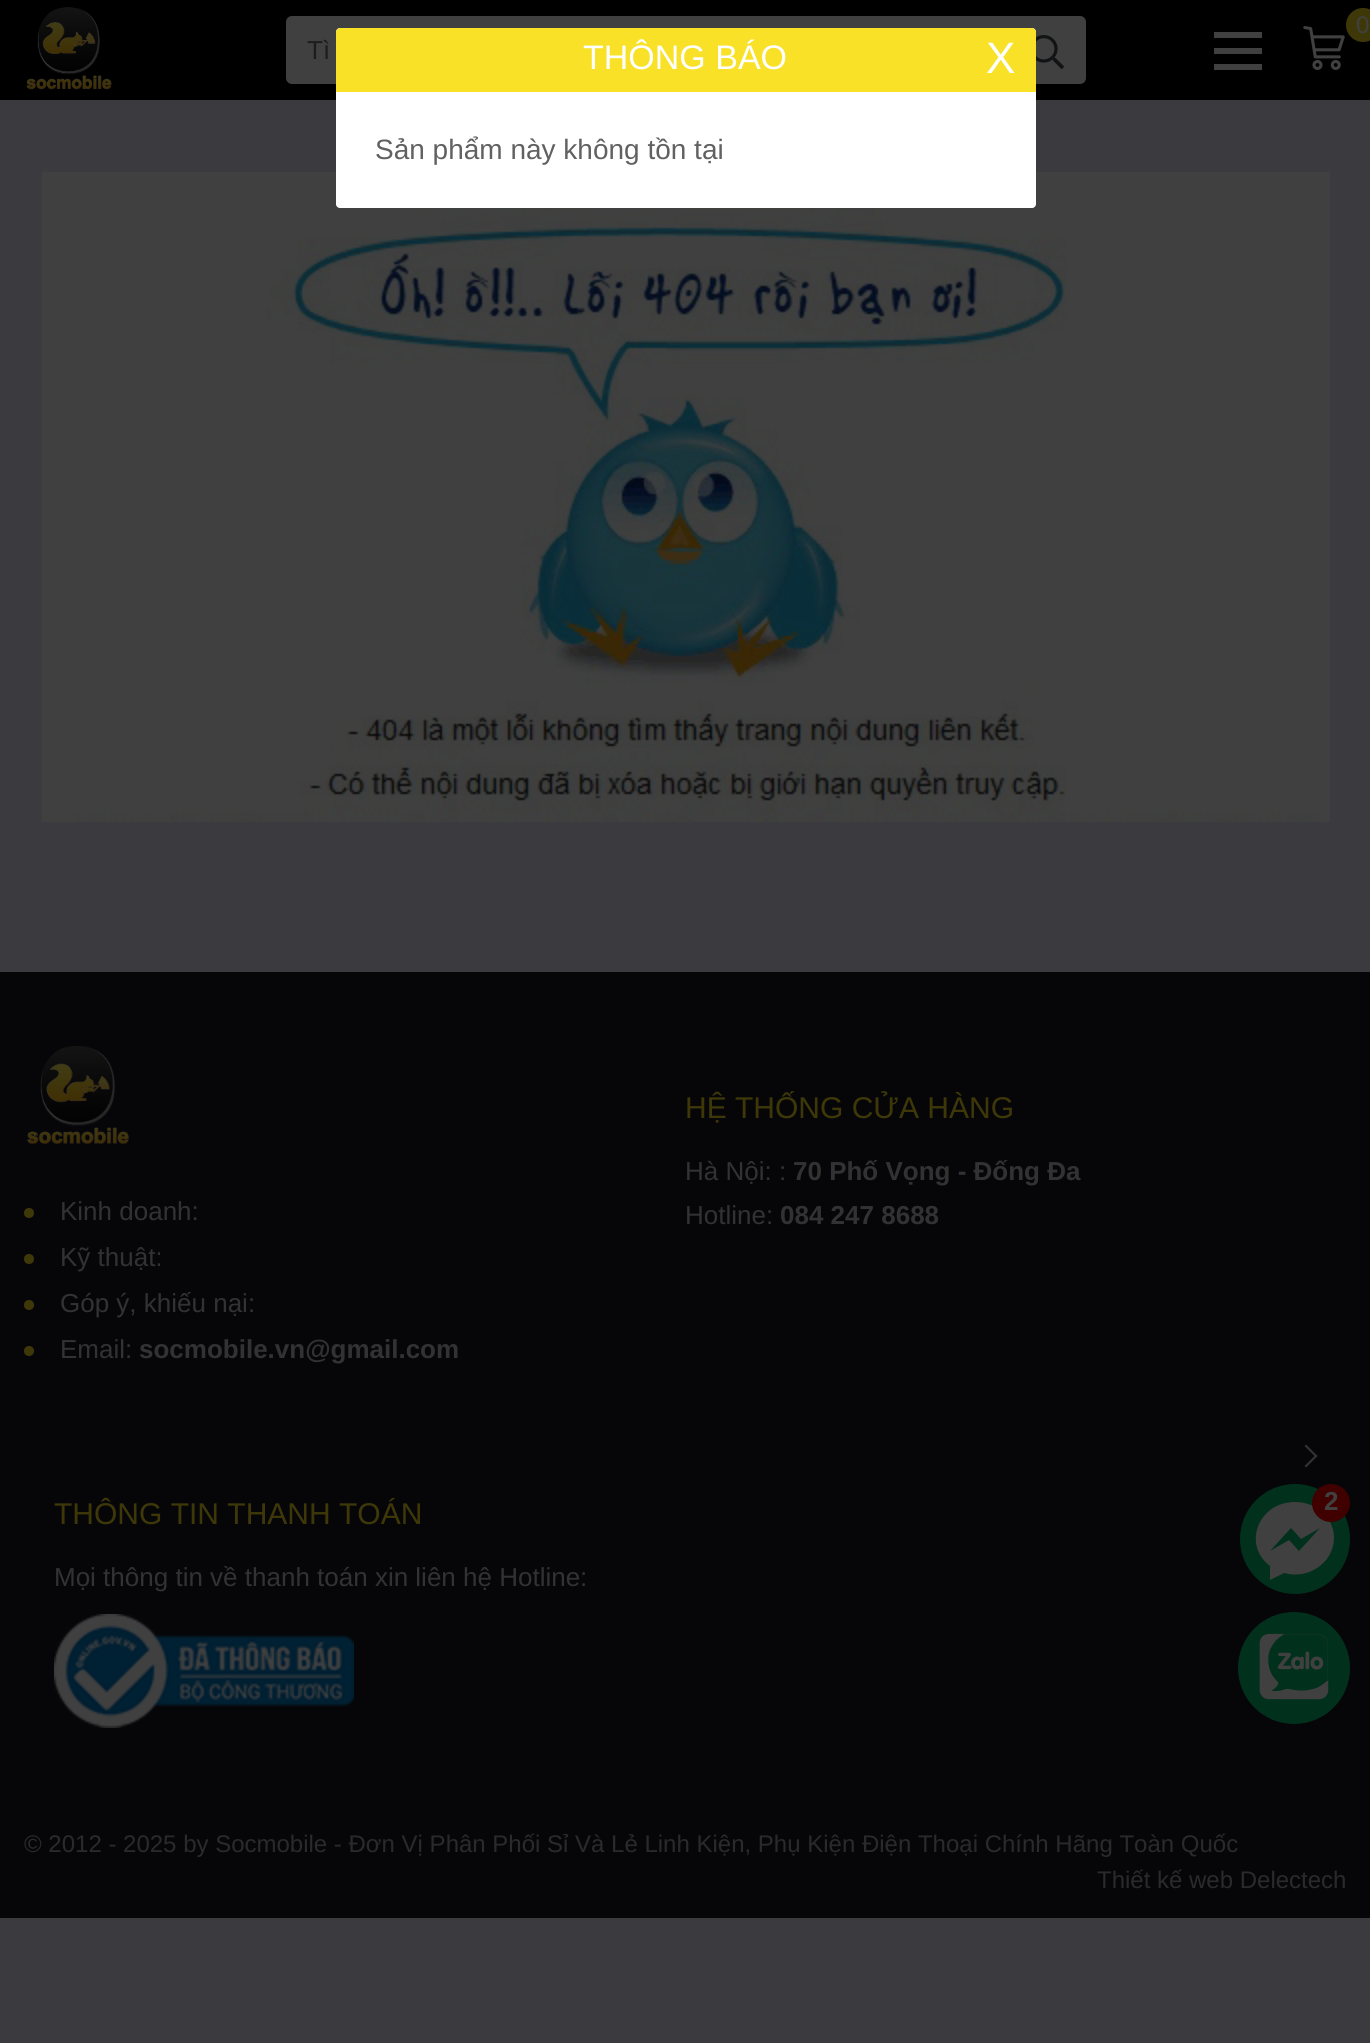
#include <cairo.h>
#include <math.h>
#include <stddef.h>


static void round_rect(cairo_t *cr, double x, double y, double w, double h, double r) {
    cairo_new_sub_path(cr);
    cairo_arc(cr, x + w - r, y + h - r, r, 0, M_PI / 2);
    cairo_arc(cr, x + r, y + h - r, r, M_PI / 2, M_PI);
    cairo_arc(cr, x + r, y + r, r, M_PI, 1.5 * M_PI);
    cairo_arc(cr, x + w - r, y + r, r, 1.5 * M_PI, 2 * M_PI);
    cairo_close_path(cr);
}

static void picture(cairo_t *cr, const char *path, double x, double y, double w, double h) {
    cairo_surface_t *image = cairo_image_surface_create_from_png(path);
    cairo_save(cr);
    cairo_set_source_surface(cr, image, x, y);
    cairo_rectangle(cr, x, y, w, h);
    cairo_fill(cr);
    cairo_restore(cr);
    cairo_surface_destroy(image);
}

int main(void) {
    cairo_surface_t *surface = cairo_image_surface_create(CAIRO_FORMAT_RGB24, 1370, 2043);
    cairo_t *cr = cairo_create(surface);
    cairo_font_options_t *options = cairo_font_options_create();
    cairo_font_options_set_hint_metrics(options, CAIRO_HINT_METRICS_OFF);
    cairo_font_options_set_hint_style(options, CAIRO_HINT_STYLE_NONE);
    cairo_set_font_options(cr, options);
    cairo_set_miter_limit(cr, 4);
    cairo_set_source_rgb(cr, 0.231, 0.231, 0.247);
    cairo_paint(cr);
    cairo_set_source_rgb(cr, 0, 0, 0);
    cairo_rectangle(cr, 0, 0, 1370, 100);
    cairo_fill(cr);
    picture(cr, "img1.png", 26, 7, 86, 83);
    picture(cr, "img2.png", 1303, 26, 42, 44);
    cairo_set_source_rgb(cr, 0.243, 0.22, 0.039);
    cairo_arc(cr, 1363, 25, 17, 0, 2 * M_PI);
    cairo_fill(cr);
    cairo_select_font_face(cr, "Liberation Sans", CAIRO_FONT_SLANT_NORMAL, CAIRO_FONT_WEIGHT_NORMAL);
    cairo_set_font_size(cr, 24);
    cairo_set_source_rgb(cr, 0.251, 0.251, 0.251);
    cairo_move_to(cr, 1356, 33);
    cairo_show_text(cr, "0");
    round_rect(cr, 286, 16, 800, 68, 6);
    cairo_fill(cr);
    cairo_set_font_size(cr, 26);
    cairo_set_source_rgb(cr, 0.114, 0.114, 0.114);
    cairo_move_to(cr, 307, 59);
    cairo_show_text(cr, "Tì");
    picture(cr, "img3.png", 1036, 35, 28, 34);
    cairo_set_source_rgb(cr, 0.251, 0.251, 0.251);
    cairo_rectangle(cr, 1214, 32, 48, 6);
    cairo_fill(cr);
    cairo_rectangle(cr, 1214, 48, 48, 6);
    cairo_fill(cr);
    cairo_rectangle(cr, 1214, 64, 48, 6);
    cairo_fill(cr);
    picture(cr, "img4.png", 42, 172, 1288, 650);
    cairo_set_source_rgb(cr, 1, 1, 1);
    round_rect(cr, 336, 28, 700, 180, 4);
    cairo_fill(cr);
    cairo_set_source_rgb(cr, 0.976, 0.882, 0.157);
    cairo_new_path(cr);
    cairo_move_to(cr, 340, 28);
    cairo_line_to(cr, 1032, 28);
    cairo_curve_to(cr, 1034, 28, 1036, 30, 1036, 32);
    cairo_line_to(cr, 1036, 92);
    cairo_line_to(cr, 336, 92);
    cairo_line_to(cr, 336, 32);
    cairo_curve_to(cr, 336, 30, 338, 28, 340, 28);
    cairo_close_path(cr);
    cairo_fill(cr);
    cairo_set_font_size(cr, 34);
    cairo_set_source_rgb(cr, 1, 1, 1);
    cairo_move_to(cr, 583, 69);
    cairo_show_text(cr, "THÔNG BÁO");
    cairo_set_font_size(cr, 44);
    cairo_move_to(cr, 986, 73);
    cairo_show_text(cr, "X");
    cairo_new_path(cr);
    cairo_move_to(cr, 336, 92);
    cairo_line_to(cr, 1036, 92);
    cairo_line_to(cr, 1036, 202);
    cairo_curve_to(cr, 1036, 205.5, 1033.5, 208, 1030, 208);
    cairo_line_to(cr, 342, 208);
    cairo_curve_to(cr, 338.5, 208, 336, 205.5, 336, 202);
    cairo_close_path(cr);
    cairo_fill(cr);
    cairo_set_font_size(cr, 28);
    cairo_set_source_rgb(cr, 0.38, 0.38, 0.38);
    cairo_move_to(cr, 375, 159);
    cairo_show_text(cr, "Sản phẩm này không tồn tại");
    cairo_set_source_rgb(cr, 0.024, 0.027, 0.039);
    cairo_rectangle(cr, 0, 972, 1370, 946);
    cairo_fill(cr);
    cairo_set_font_size(cr, 30);
    cairo_set_source_rgb(cr, 0.243, 0.22, 0.039);
    cairo_move_to(cr, 685, 1118);
    cairo_show_text(cr, "HỆ THỐNG CỬA HÀNG");
    cairo_set_font_size(cr, 26);
    cairo_set_source_rgb(cr, 0.196, 0.196, 0.196);
    cairo_move_to(cr, 685, 1180);
    cairo_show_text(cr, "Hà Nội: :");
    cairo_select_font_face(cr, "Liberation Sans", CAIRO_FONT_SLANT_NORMAL, CAIRO_FONT_WEIGHT_BOLD);
    cairo_move_to(cr, 793, 1180);
    cairo_show_text(cr, "70 Phố Vọng - Đống Đa");
    cairo_select_font_face(cr, "Liberation Sans", CAIRO_FONT_SLANT_NORMAL, CAIRO_FONT_WEIGHT_NORMAL);
    cairo_move_to(cr, 685, 1224);
    cairo_show_text(cr, "Hotline:");
    cairo_select_font_face(cr, "Liberation Sans", CAIRO_FONT_SLANT_NORMAL, CAIRO_FONT_WEIGHT_BOLD);
    cairo_move_to(cr, 780, 1224);
    cairo_show_text(cr, "084 247 8688");
    picture(cr, "img5.png", 26, 1046, 104, 99);
    cairo_set_source_rgb(cr, 0.243, 0.22, 0.039);
    cairo_arc(cr, 29, 1213, 5, 0, 2 * M_PI);
    cairo_fill(cr);
    cairo_select_font_face(cr, "Liberation Sans", CAIRO_FONT_SLANT_NORMAL, CAIRO_FONT_WEIGHT_NORMAL);
    cairo_set_source_rgb(cr, 0.196, 0.196, 0.196);
    cairo_move_to(cr, 60, 1220);
    cairo_show_text(cr, "Kinh doanh:");
    cairo_set_source_rgb(cr, 0.243, 0.22, 0.039);
    cairo_new_path(cr);
    cairo_arc(cr, 29, 1259, 5, 0, 2 * M_PI);
    cairo_fill(cr);
    cairo_set_source_rgb(cr, 0.196, 0.196, 0.196);
    cairo_move_to(cr, 60, 1266);
    cairo_show_text(cr, "Kỹ thuật:");
    cairo_set_source_rgb(cr, 0.243, 0.22, 0.039);
    cairo_new_path(cr);
    cairo_arc(cr, 29, 1305, 5, 0, 2 * M_PI);
    cairo_fill(cr);
    cairo_set_source_rgb(cr, 0.196, 0.196, 0.196);
    cairo_move_to(cr, 60, 1312);
    cairo_show_text(cr, "Góp ý, khiếu nại:");
    cairo_set_source_rgb(cr, 0.243, 0.22, 0.039);
    cairo_new_path(cr);
    cairo_arc(cr, 29, 1351, 5, 0, 2 * M_PI);
    cairo_fill(cr);
    cairo_set_source_rgb(cr, 0.196, 0.196, 0.196);
    cairo_move_to(cr, 60, 1358);
    cairo_show_text(cr, "Email:");
    cairo_select_font_face(cr, "Liberation Sans", CAIRO_FONT_SLANT_NORMAL, CAIRO_FONT_WEIGHT_BOLD);
    cairo_move_to(cr, 139, 1358);
    cairo_show_text(cr, "socmobile.vn@gmail.com");
    cairo_new_path(cr);
    cairo_move_to(cr, 1304.5, 1446);
    cairo_line_to(cr, 1306, 1444.5);
    cairo_line_to(cr, 1317.5, 1456);
    cairo_line_to(cr, 1316, 1457.5);
    cairo_close_path(cr);
    cairo_fill(cr);
    cairo_new_path(cr);
    cairo_move_to(cr, 1304.5, 1466);
    cairo_line_to(cr, 1316, 1454.5);
    cairo_line_to(cr, 1317.5, 1456);
    cairo_line_to(cr, 1306, 1467.5);
    cairo_close_path(cr);
    cairo_fill(cr);
    cairo_select_font_face(cr, "Liberation Sans", CAIRO_FONT_SLANT_NORMAL, CAIRO_FONT_WEIGHT_NORMAL);
    cairo_set_font_size(cr, 30);
    cairo_set_source_rgb(cr, 0.243, 0.22, 0.039);
    cairo_move_to(cr, 54, 1524);
    cairo_show_text(cr, "THÔNG TIN THANH TOÁN");
    cairo_set_font_size(cr, 26);
    cairo_set_source_rgb(cr, 0.196, 0.196, 0.196);
    cairo_move_to(cr, 54, 1586);
    cairo_show_text(cr, "Mọi thông tin về thanh toán xin liên hệ Hotline:");
    picture(cr, "img6.png", 54, 1614, 300, 114);
    cairo_set_source_rgb(cr, 0.004, 0.188, 0.11);
    cairo_arc(cr, 1295, 1539, 55, 0, 2 * M_PI);
    cairo_fill(cr);
    cairo_set_source_rgb(cr, 0.251, 0.251, 0.251);
    cairo_new_path(cr);
    cairo_move_to(cr, 1295, 1502);
    cairo_curve_to(cr, 1258, 1502, 1242, 1545, 1270, 1566);
    cairo_line_to(cr, 1270, 1580);
    cairo_line_to(cr, 1284, 1573);
    cairo_curve_to(cr, 1309, 1580, 1334, 1562, 1334, 1538);
    cairo_curve_to(cr, 1334, 1518, 1317, 1502, 1295, 1502);
    cairo_close_path(cr);
    cairo_move_to(cr, 1299, 1551);
    cairo_line_to(cr, 1289, 1540);
    cairo_line_to(cr, 1270, 1551);
    cairo_line_to(cr, 1291, 1528);
    cairo_line_to(cr, 1301, 1539);
    cairo_line_to(cr, 1320, 1528);
    cairo_close_path(cr);
    cairo_fill(cr);
    cairo_set_source_rgb(cr, 0.251, 0, 0);
    cairo_arc(cr, 1331, 1503, 19, 0, 2 * M_PI);
    cairo_fill(cr);
    cairo_select_font_face(cr, "Liberation Sans", CAIRO_FONT_SLANT_NORMAL, CAIRO_FONT_WEIGHT_BOLD);
    cairo_set_source_rgb(cr, 0.251, 0.251, 0.251);
    cairo_move_to(cr, 1324, 1510);
    cairo_show_text(cr, "2");
    cairo_set_source_rgb(cr, 0.004, 0.188, 0.11);
    cairo_new_path(cr);
    cairo_arc(cr, 1294, 1668, 56, 0, 2 * M_PI);
    cairo_fill(cr);
    picture(cr, "img7.png", 1259, 1633, 70, 67);
    cairo_select_font_face(cr, "Liberation Sans", CAIRO_FONT_SLANT_NORMAL, CAIRO_FONT_WEIGHT_NORMAL);
    cairo_set_font_size(cr, 24);
    cairo_set_source_rgb(cr, 0.165, 0.165, 0.165);
    cairo_move_to(cr, 24, 1852);
    cairo_show_text(cr, "© 2012 - 2025 by Socmobile - Đơn Vị Phân Phối Sỉ Và Lẻ Linh Kiện, Phụ Kiện Điện Thoại Chính Hãng Toàn Quốc");
    cairo_move_to(cr, 1097, 1888);
    cairo_show_text(cr, "Thiết kế web Delectech");
    cairo_surface_write_to_png(surface, "page.png");
    cairo_font_options_destroy(options);
    cairo_destroy(cr);
    cairo_surface_destroy(surface);
    return 0;
}
